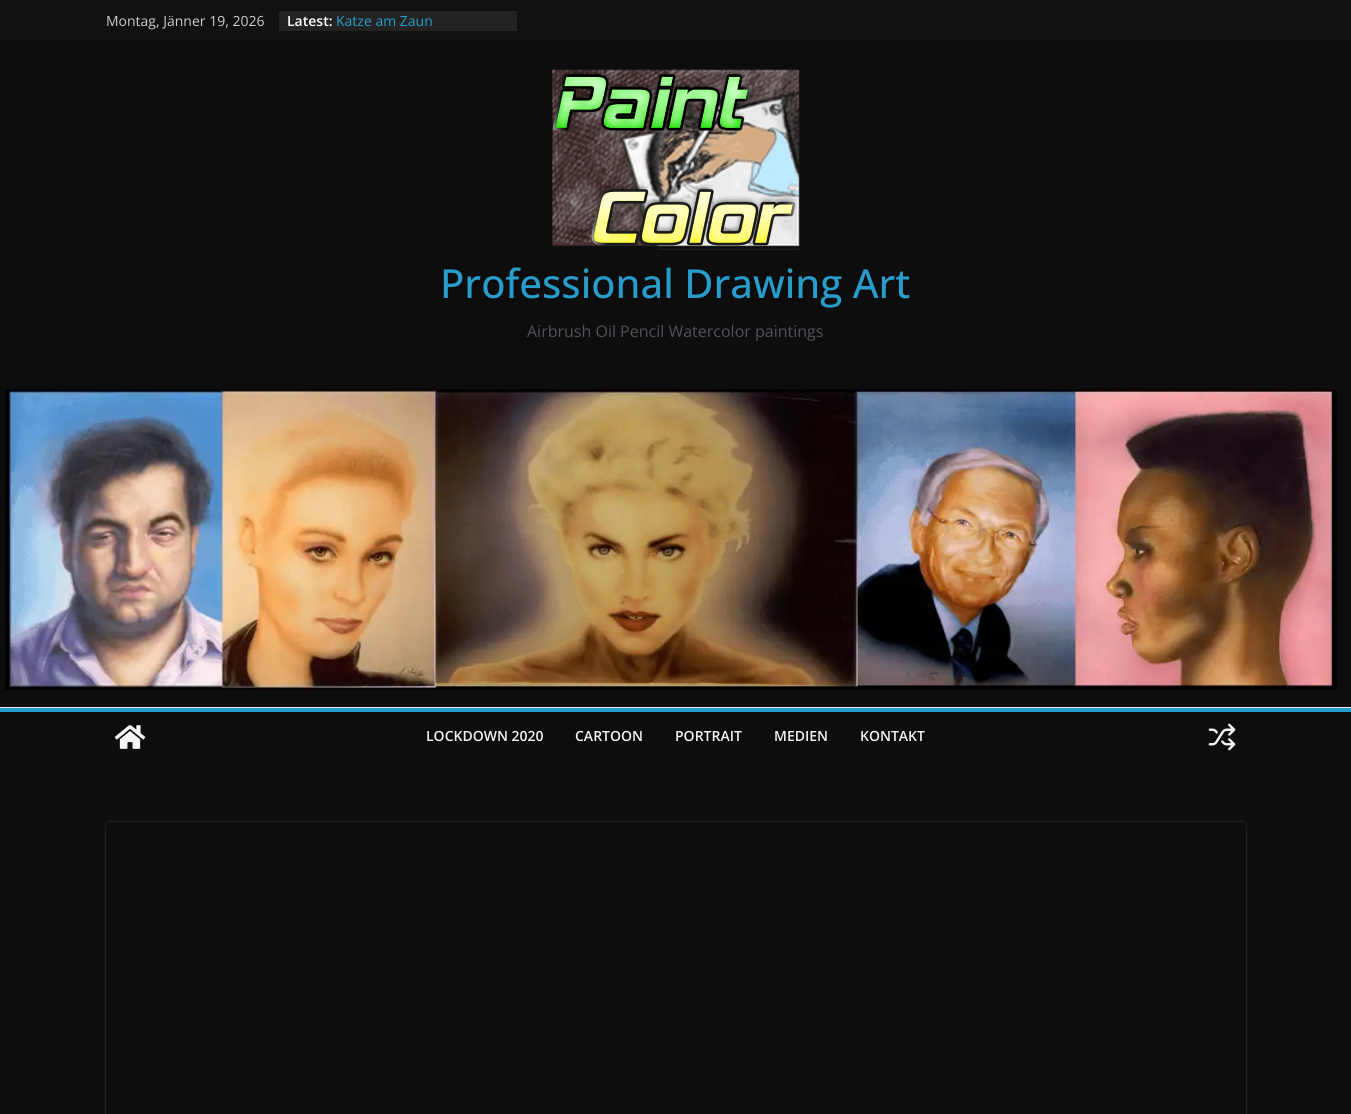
#include <cairo.h>
#include <math.h>
#include <stddef.h>


static void round_rect(cairo_t *cr, double x, double y, double w, double h, double r) {
    cairo_new_sub_path(cr);
    cairo_arc(cr, x + w - r, y + h - r, r, 0, M_PI / 2);
    cairo_arc(cr, x + r, y + h - r, r, M_PI / 2, M_PI);
    cairo_arc(cr, x + r, y + r, r, M_PI, 1.5 * M_PI);
    cairo_arc(cr, x + w - r, y + r, r, 1.5 * M_PI, 2 * M_PI);
    cairo_close_path(cr);
}

static void shadow(cairo_t *cr, double x, double y, double w, double h, double r, double blur, double alpha) {
    cairo_push_group_with_content(cr, CAIRO_CONTENT_ALPHA);
    cairo_set_operator(cr, CAIRO_OPERATOR_SOURCE);
    for (int i = 15; i >= -15 && fmin(w, h) + blur * i / 3 > 0; i -= 2) {
        double e = blur * i / 6;
        cairo_set_source_rgba(cr, 0, 0, 0, alpha * erfc((i - 1) / 8.5) / 2);
        round_rect(cr, x - e, y - e, w + 2 * e, h + 2 * e, fmax(0, fmin(r + e + blur * .6, fmin(w, h) / 2 + e)));
        cairo_fill(cr);
    }
    cairo_pattern_t *soft = cairo_pop_group(cr);
    cairo_mask(cr, soft);
    cairo_pattern_destroy(soft);
}

static void picture(cairo_t *cr, const char *path, double x, double y, double w, double h) {
    cairo_surface_t *image = cairo_image_surface_create_from_png(path);
    cairo_save(cr);
    cairo_set_source_surface(cr, image, x, y);
    cairo_rectangle(cr, x, y, w, h);
    cairo_fill(cr);
    cairo_restore(cr);
    cairo_surface_destroy(image);
}

int main(void) {
    cairo_surface_t *surface = cairo_image_surface_create(CAIRO_FORMAT_RGB24, 1351, 1114);
    cairo_t *cr = cairo_create(surface);
    cairo_font_options_t *options = cairo_font_options_create();
    cairo_font_options_set_hint_metrics(options, CAIRO_HINT_METRICS_OFF);
    cairo_font_options_set_hint_style(options, CAIRO_HINT_STYLE_NONE);
    cairo_set_font_options(cr, options);
    cairo_set_miter_limit(cr, 4);
    cairo_set_source_rgb(cr, 0.051, 0.051, 0.051);
    cairo_paint(cr);
    cairo_set_source_rgb(cr, 0.067, 0.067, 0.067);
    cairo_rectangle(cr, 0, 0, 1351, 41);
    cairo_fill(cr);
    cairo_select_font_face(cr, "Open Sans", CAIRO_FONT_SLANT_NORMAL, CAIRO_FONT_WEIGHT_NORMAL);
    cairo_set_font_size(cr, 14);
    cairo_set_source_rgb(cr, 0.8, 0.8, 0.8);
    cairo_move_to(cr, 106, 26);
    cairo_show_text(cr, "Montag, Jänner 19, 2026");
    cairo_set_source_rgb(cr, 0.137, 0.137, 0.137);
    cairo_rectangle(cr, 279, 11, 238, 20);
    cairo_fill(cr);
    cairo_select_font_face(cr, "Open Sans SemiBold", CAIRO_FONT_SLANT_NORMAL, CAIRO_FONT_WEIGHT_NORMAL);
    cairo_set_source_rgb(cr, 1, 1, 1);
    cairo_move_to(cr, 287, 26);
    cairo_show_text(cr, "Latest:");
    cairo_select_font_face(cr, "Open Sans", CAIRO_FONT_SLANT_NORMAL, CAIRO_FONT_WEIGHT_NORMAL);
    cairo_set_source_rgb(cr, 0.157, 0.616, 0.8);
    cairo_move_to(cr, 336, 26);
    cairo_show_text(cr, "Katze am Zaun");
    picture(cr, "img1.png", 552, 69, 248, 181);
    cairo_select_font_face(cr, "Open Sans Medium", CAIRO_FONT_SLANT_NORMAL, CAIRO_FONT_WEIGHT_NORMAL);
    cairo_set_font_size(cr, 40);
    cairo_move_to(cr, 440, 298);
    cairo_show_text(cr, "Professional Drawing Art");
    cairo_select_font_face(cr, "Open Sans", CAIRO_FONT_SLANT_NORMAL, CAIRO_FONT_WEIGHT_NORMAL);
    cairo_set_font_size(cr, 16);
    cairo_set_source_rgb(cr, 0.322, 0.322, 0.357);
    cairo_move_to(cr, 527, 337);
    cairo_show_text(cr, "Airbrush Oil Pencil Watercolor paintings");
    picture(cr, "img2.png", 5, 389, 1332, 301);
    cairo_set_source_rgb(cr, 0.922, 0.922, 0.922);
    cairo_rectangle(cr, 0, 707, 1351, 1);
    cairo_fill(cr);
    cairo_set_source_rgb(cr, 0.157, 0.616, 0.8);
    cairo_rectangle(cr, 0, 708, 1351, 4);
    cairo_fill(cr);
    picture(cr, "img3.png", 114, 725, 32, 24);
    cairo_select_font_face(cr, "Open Sans SemiBold", CAIRO_FONT_SLANT_NORMAL, CAIRO_FONT_WEIGHT_NORMAL);
    cairo_set_font_size(cr, 14);
    cairo_set_source_rgb(cr, 0.957, 0.957, 0.961);
    cairo_move_to(cr, 426, 741);
    cairo_show_text(cr, "LOCKDOWN 2020");
    cairo_move_to(cr, 575, 741);
    cairo_show_text(cr, "CARTOON");
    cairo_move_to(cr, 675, 741);
    cairo_show_text(cr, "PORTRAIT");
    cairo_move_to(cr, 774, 741);
    cairo_show_text(cr, "MEDIEN");
    cairo_move_to(cr, 860, 741);
    cairo_show_text(cr, "KONTAKT");
    picture(cr, "img4.png", 1208, 723, 28, 28);
    cairo_save(cr);
    cairo_set_fill_rule(cr, CAIRO_FILL_RULE_EVEN_ODD);
    cairo_new_path(cr);
    cairo_move_to(cr, 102, 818);
    cairo_line_to(cr, 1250, 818);
    cairo_line_to(cr, 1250, 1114);
    cairo_line_to(cr, 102, 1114);
    cairo_close_path(cr);
    cairo_move_to(cr, 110, 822);
    cairo_line_to(cr, 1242, 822);
    cairo_curve_to(cr, 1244, 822, 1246, 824, 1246, 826);
    cairo_line_to(cr, 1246, 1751);
    cairo_curve_to(cr, 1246, 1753, 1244, 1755, 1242, 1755);
    cairo_line_to(cr, 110, 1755);
    cairo_curve_to(cr, 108, 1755, 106, 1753, 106, 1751);
    cairo_line_to(cr, 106, 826);
    cairo_curve_to(cr, 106, 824, 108, 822, 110, 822);
    cairo_close_path(cr);
    cairo_clip(cr);
    cairo_set_source_rgb(cr, 1, 1, 1);
    shadow(cr, 106, 822, 1140, 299, 4, 1, 0.24);
    cairo_restore(cr);
    cairo_surface_write_to_png(surface, "page.png");
    cairo_font_options_destroy(options);
    cairo_destroy(cr);
    cairo_surface_destroy(surface);
    return 0;
}
